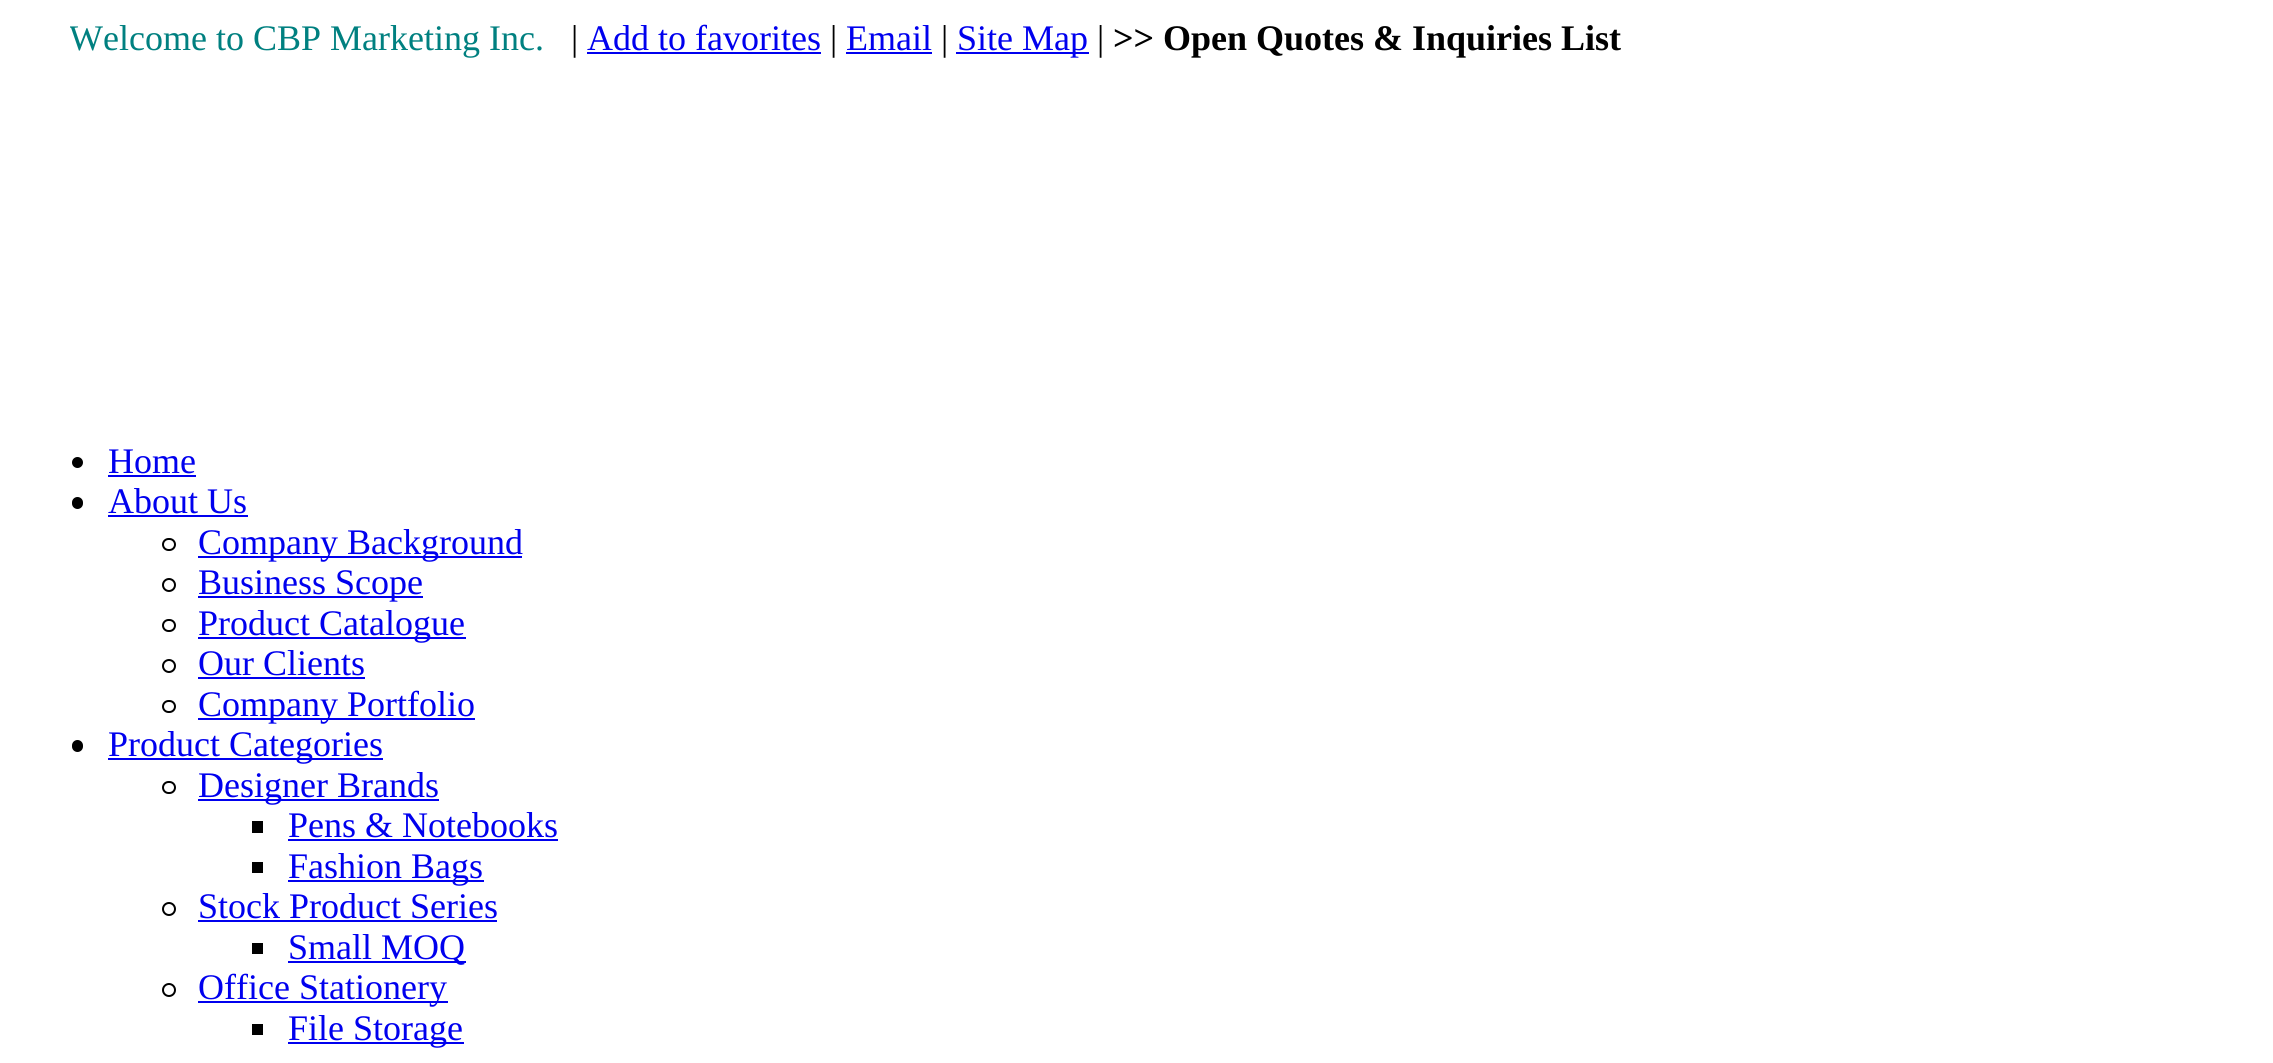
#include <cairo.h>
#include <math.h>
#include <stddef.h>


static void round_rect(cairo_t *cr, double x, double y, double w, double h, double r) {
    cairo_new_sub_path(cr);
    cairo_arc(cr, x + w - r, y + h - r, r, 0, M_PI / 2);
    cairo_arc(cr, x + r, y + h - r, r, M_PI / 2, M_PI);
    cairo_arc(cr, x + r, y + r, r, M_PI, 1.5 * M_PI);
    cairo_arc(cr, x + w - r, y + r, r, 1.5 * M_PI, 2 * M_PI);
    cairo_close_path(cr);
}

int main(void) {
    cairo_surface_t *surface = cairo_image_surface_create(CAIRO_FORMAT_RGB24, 2273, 1063);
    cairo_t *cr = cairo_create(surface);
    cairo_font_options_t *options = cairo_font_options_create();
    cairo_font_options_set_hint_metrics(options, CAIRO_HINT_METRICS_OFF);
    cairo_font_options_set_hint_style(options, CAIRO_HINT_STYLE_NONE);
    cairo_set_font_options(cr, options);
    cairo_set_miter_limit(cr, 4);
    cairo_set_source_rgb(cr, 1, 1, 1);
    cairo_paint(cr);
    cairo_save(cr);
    cairo_rectangle(cr, 70, 18, 2137, 41);
    cairo_clip(cr);
    cairo_select_font_face(cr, "Liberation Serif", CAIRO_FONT_SLANT_NORMAL, CAIRO_FONT_WEIGHT_NORMAL);
    cairo_set_font_size(cr, 36);
    cairo_set_source_rgb(cr, 0, 0.502, 0.502);
    cairo_move_to(cr, 69, 50);
    cairo_show_text(cr, "Welcome to CBP Marketing Inc.");
    cairo_restore(cr);
    cairo_select_font_face(cr, "Liberation Serif", CAIRO_FONT_SLANT_NORMAL, CAIRO_FONT_WEIGHT_NORMAL);
    cairo_set_font_size(cr, 36);
    cairo_set_source_rgb(cr, 0, 0, 0);
    cairo_move_to(cr, 571, 50);
    cairo_show_text(cr, "|");
    cairo_set_source_rgb(cr, 0, 0, 0.933);
    cairo_move_to(cr, 587, 50);
    cairo_show_text(cr, "Add to favorites");
    cairo_rectangle(cr, 587, 52, 234, 2);
    cairo_fill(cr);
    cairo_set_source_rgb(cr, 0, 0, 0);
    cairo_move_to(cr, 830, 50);
    cairo_show_text(cr, "|");
    cairo_set_source_rgb(cr, 0, 0, 0.933);
    cairo_move_to(cr, 846, 50);
    cairo_show_text(cr, "Email");
    cairo_rectangle(cr, 846, 52, 86, 2);
    cairo_fill(cr);
    cairo_set_source_rgb(cr, 0, 0, 0);
    cairo_move_to(cr, 941, 50);
    cairo_show_text(cr, "|");
    cairo_set_source_rgb(cr, 0, 0, 0.933);
    cairo_rectangle(cr, 956, 52, 133, 2);
    cairo_fill(cr);
    cairo_move_to(cr, 957, 50);
    cairo_show_text(cr, "Site Map");
    cairo_set_source_rgb(cr, 0, 0, 0);
    cairo_move_to(cr, 1097, 50);
    cairo_show_text(cr, "|");
    cairo_select_font_face(cr, "Liberation Serif", CAIRO_FONT_SLANT_NORMAL, CAIRO_FONT_WEIGHT_BOLD);
    cairo_move_to(cr, 1113, 50);
    cairo_show_text(cr, ">> Open Quotes & Inquiries List");
    cairo_new_path(cr);
    cairo_arc(cr, 77.5, 462.5, 5.5, 0, 2 * M_PI);
    cairo_fill(cr);
    cairo_select_font_face(cr, "Liberation Serif", CAIRO_FONT_SLANT_NORMAL, CAIRO_FONT_WEIGHT_NORMAL);
    cairo_set_source_rgb(cr, 0, 0, 0.933);
    cairo_move_to(cr, 108, 473);
    cairo_show_text(cr, "Home");
    cairo_rectangle(cr, 108, 475, 88, 2);
    cairo_fill(cr);
    cairo_set_source_rgb(cr, 0, 0, 0);
    round_rect(cr, 72, 497, 11, 12, 5.5);
    cairo_fill(cr);
    cairo_set_source_rgb(cr, 0, 0, 0.933);
    cairo_move_to(cr, 108, 513);
    cairo_show_text(cr, "About Us");
    cairo_rectangle(cr, 108, 515, 140, 2);
    cairo_fill(cr);
    round_rect(cr, 163, 539, 12, 11, 5.5);
    cairo_set_source_rgb(cr, 0, 0, 0);
    cairo_stroke(cr);
    cairo_set_source_rgb(cr, 0, 0, 0.933);
    cairo_rectangle(cr, 198, 556, 324, 2);
    cairo_fill(cr);
    cairo_move_to(cr, 198, 554);
    cairo_show_text(cr, "Company Background");
    cairo_new_path(cr);
    cairo_arc(cr, 169, 585, 6, 0, 2 * M_PI);
    cairo_set_source_rgb(cr, 0, 0, 0);
    cairo_stroke(cr);
    cairo_set_source_rgb(cr, 0, 0, 0.933);
    cairo_rectangle(cr, 198, 596, 225, 2);
    cairo_fill(cr);
    cairo_move_to(cr, 198, 594);
    cairo_show_text(cr, "Business Scope");
    round_rect(cr, 163, 620, 12, 11, 5.5);
    cairo_set_source_rgb(cr, 0, 0, 0);
    cairo_stroke(cr);
    cairo_set_source_rgb(cr, 0, 0, 0.933);
    cairo_rectangle(cr, 198, 637, 268, 2);
    cairo_fill(cr);
    cairo_move_to(cr, 198, 635);
    cairo_show_text(cr, "Product Catalogue");
    cairo_new_path(cr);
    cairo_arc(cr, 169, 666, 6, 0, 2 * M_PI);
    cairo_set_source_rgb(cr, 0, 0, 0);
    cairo_stroke(cr);
    cairo_set_source_rgb(cr, 0, 0, 0.933);
    cairo_move_to(cr, 198, 675);
    cairo_show_text(cr, "Our Clients");
    cairo_rectangle(cr, 198, 677, 167, 2);
    cairo_fill(cr);
    round_rect(cr, 163, 701, 12, 11, 5.5);
    cairo_set_source_rgb(cr, 0, 0, 0);
    cairo_stroke(cr);
    cairo_set_source_rgb(cr, 0, 0, 0.933);
    cairo_rectangle(cr, 198, 718, 277, 2);
    cairo_fill(cr);
    cairo_move_to(cr, 198, 716);
    cairo_show_text(cr, "Company Portfolio");
    cairo_set_source_rgb(cr, 0, 0, 0);
    round_rect(cr, 72, 740, 11, 12, 5.5);
    cairo_fill(cr);
    cairo_set_source_rgb(cr, 0, 0, 0.933);
    cairo_rectangle(cr, 108, 758, 275, 2);
    cairo_fill(cr);
    cairo_move_to(cr, 108, 756);
    cairo_show_text(cr, "Product Categories");
    round_rect(cr, 163, 782, 12, 11, 5.5);
    cairo_set_source_rgb(cr, 0, 0, 0);
    cairo_stroke(cr);
    cairo_set_source_rgb(cr, 0, 0, 0.933);
    cairo_rectangle(cr, 198, 799, 241, 2);
    cairo_fill(cr);
    cairo_move_to(cr, 198, 797);
    cairo_show_text(cr, "Designer Brands");
    cairo_set_source_rgb(cr, 0, 0, 0);
    cairo_rectangle(cr, 252, 821, 11, 12);
    cairo_fill(cr);
    cairo_set_source_rgb(cr, 0, 0, 0.933);
    cairo_move_to(cr, 288, 837);
    cairo_show_text(cr, "Pens & Notebooks");
    cairo_rectangle(cr, 288, 839, 270, 2);
    cairo_fill(cr);
    cairo_set_source_rgb(cr, 0, 0, 0);
    cairo_rectangle(cr, 252, 862, 11, 11);
    cairo_fill(cr);
    cairo_set_source_rgb(cr, 0, 0, 0.933);
    cairo_rectangle(cr, 288, 880, 196, 2);
    cairo_fill(cr);
    cairo_move_to(cr, 288, 878);
    cairo_show_text(cr, "Fashion Bags");
    cairo_new_path(cr);
    cairo_arc(cr, 169, 909, 6, 0, 2 * M_PI);
    cairo_set_source_rgb(cr, 0, 0, 0);
    cairo_stroke(cr);
    cairo_set_source_rgb(cr, 0, 0, 0.933);
    cairo_move_to(cr, 198, 918);
    cairo_show_text(cr, "Stock Product Series");
    cairo_rectangle(cr, 198, 920, 299, 2);
    cairo_fill(cr);
    cairo_set_source_rgb(cr, 0, 0, 0);
    cairo_rectangle(cr, 252, 943, 11, 11);
    cairo_fill(cr);
    cairo_set_source_rgb(cr, 0, 0, 0.933);
    cairo_rectangle(cr, 288, 961, 178, 2);
    cairo_fill(cr);
    cairo_move_to(cr, 288, 959);
    cairo_show_text(cr, "Small MOQ");
    cairo_new_path(cr);
    cairo_arc(cr, 169, 990, 6, 0, 2 * M_PI);
    cairo_set_source_rgb(cr, 0, 0, 0);
    cairo_stroke(cr);
    cairo_set_source_rgb(cr, 0, 0, 0.933);
    cairo_rectangle(cr, 198, 1001, 250, 2);
    cairo_fill(cr);
    cairo_move_to(cr, 198, 999);
    cairo_show_text(cr, "Office Stationery");
    cairo_set_source_rgb(cr, 0, 0, 0);
    cairo_rectangle(cr, 252, 1024, 11, 11);
    cairo_fill(cr);
    cairo_set_source_rgb(cr, 0, 0, 0.933);
    cairo_rectangle(cr, 288, 1042, 176, 2);
    cairo_fill(cr);
    cairo_move_to(cr, 288, 1040);
    cairo_show_text(cr, "File Storage");
    cairo_surface_write_to_png(surface, "page.png");
    cairo_font_options_destroy(options);
    cairo_destroy(cr);
    cairo_surface_destroy(surface);
    return 0;
}
